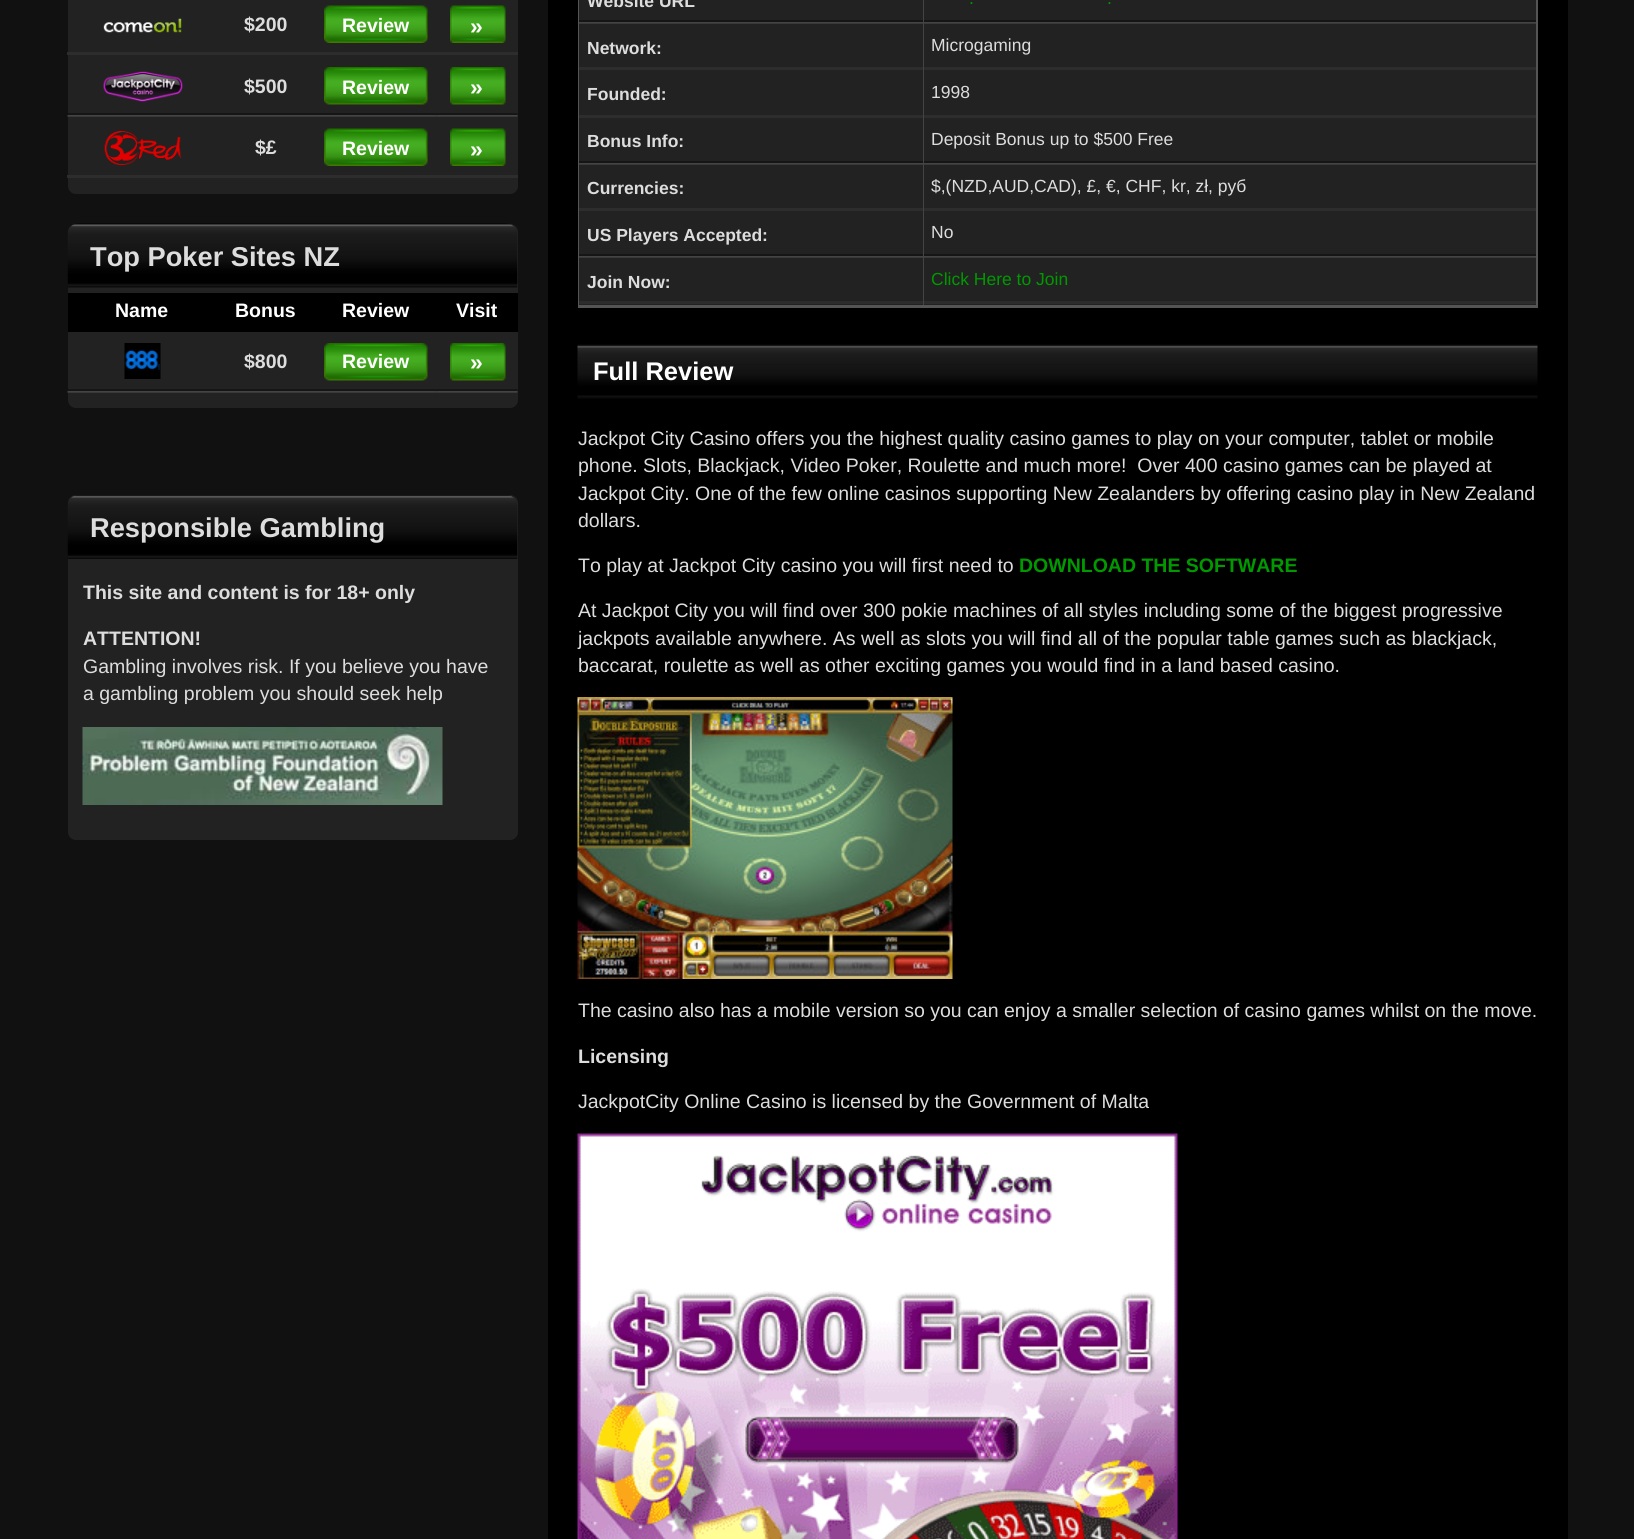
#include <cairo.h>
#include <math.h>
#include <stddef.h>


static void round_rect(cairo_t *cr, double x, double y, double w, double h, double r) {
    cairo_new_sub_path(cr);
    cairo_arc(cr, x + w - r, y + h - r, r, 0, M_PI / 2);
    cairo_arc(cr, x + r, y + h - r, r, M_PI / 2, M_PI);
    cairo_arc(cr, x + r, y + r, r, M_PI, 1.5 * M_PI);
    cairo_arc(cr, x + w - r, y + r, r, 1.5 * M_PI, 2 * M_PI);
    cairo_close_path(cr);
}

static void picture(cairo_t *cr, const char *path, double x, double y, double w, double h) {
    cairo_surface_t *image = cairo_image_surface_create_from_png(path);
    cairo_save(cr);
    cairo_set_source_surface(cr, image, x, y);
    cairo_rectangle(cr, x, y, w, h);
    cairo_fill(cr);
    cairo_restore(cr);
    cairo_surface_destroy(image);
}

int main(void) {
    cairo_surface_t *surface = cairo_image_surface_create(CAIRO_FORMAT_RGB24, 1634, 1539);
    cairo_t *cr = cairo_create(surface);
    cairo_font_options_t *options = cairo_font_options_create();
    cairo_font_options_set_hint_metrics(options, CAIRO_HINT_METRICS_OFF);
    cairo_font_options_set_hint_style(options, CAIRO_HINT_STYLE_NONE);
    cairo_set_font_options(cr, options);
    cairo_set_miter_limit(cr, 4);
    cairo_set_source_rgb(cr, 0.067, 0.067, 0.067);
    cairo_paint(cr);
    cairo_set_source_rgb(cr, 0.133, 0.133, 0.133);
    round_rect(cr, 68, -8, 450, 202, 8);
    cairo_fill(cr);
    cairo_select_font_face(cr, "Liberation Sans", CAIRO_FONT_SLANT_NORMAL, CAIRO_FONT_WEIGHT_BOLD);
    cairo_set_font_size(cr, 19.5);
    cairo_set_source_rgb(cr, 0.867, 0.867, 0.867);
    cairo_move_to(cr, 244, 31);
    cairo_show_text(cr, "$200");
    picture(cr, "img1.png", 324, 5, 104, 38);
    cairo_set_source_rgb(cr, 1, 1, 1);
    cairo_move_to(cr, 342, 32);
    cairo_show_text(cr, "Review");
    cairo_set_source_rgb(cr, 0.176, 0.176, 0.176);
    cairo_rectangle(cr, 67, 52, 451, 3);
    cairo_fill(cr);
    picture(cr, "img2.png", 103, 18, 79, 15);
    picture(cr, "img3.png", 450, 5, 56, 38);
    cairo_set_font_size(cr, 23);
    cairo_set_source_rgb(cr, 1, 1, 1);
    cairo_move_to(cr, 470, 34);
    cairo_show_text(cr, "»");
    picture(cr, "img4.png", 67, 113, 149, 4);
    picture(cr, "img5.png", 103, 71, 80, 31);
    picture(cr, "img6.png", 216, 113, 99, 4);
    cairo_set_font_size(cr, 19.5);
    cairo_set_source_rgb(cr, 0.867, 0.867, 0.867);
    cairo_move_to(cr, 244, 93);
    cairo_show_text(cr, "$500");
    picture(cr, "img7.png", 315, 113, 122, 4);
    picture(cr, "img8.png", 324, 67, 104, 38);
    cairo_set_source_rgb(cr, 1, 1, 1);
    cairo_move_to(cr, 342, 94);
    cairo_show_text(cr, "Review");
    picture(cr, "img9.png", 436, 113, 82, 4);
    picture(cr, "img10.png", 450, 67, 56, 38);
    cairo_set_font_size(cr, 23);
    cairo_move_to(cr, 470, 95);
    cairo_show_text(cr, "»");
    cairo_set_source_rgb(cr, 0.176, 0.176, 0.176);
    cairo_rectangle(cr, 67, 175, 451, 3);
    cairo_fill(cr);
    picture(cr, "img11.png", 104, 131, 78, 35);
    cairo_set_font_size(cr, 19.5);
    cairo_set_source_rgb(cr, 0.867, 0.867, 0.867);
    cairo_move_to(cr, 255, 154);
    cairo_show_text(cr, "$£");
    picture(cr, "img1.png", 324, 128, 104, 38);
    cairo_set_source_rgb(cr, 1, 1, 1);
    cairo_move_to(cr, 342, 155);
    cairo_show_text(cr, "Review");
    picture(cr, "img3.png", 450, 128, 56, 38);
    cairo_set_font_size(cr, 23);
    cairo_move_to(cr, 470, 157);
    cairo_show_text(cr, "»");
    cairo_set_source_rgb(cr, 0.133, 0.133, 0.133);
    round_rect(cr, 68, 224, 450, 184, 8);
    cairo_fill(cr);
    picture(cr, "img12.png", 67, 223, 451, 65);
    cairo_set_font_size(cr, 27.25);
    cairo_set_source_rgb(cr, 0.867, 0.867, 0.867);
    cairo_move_to(cr, 90, 266);
    cairo_show_text(cr, "Top Poker Sites NZ");
    cairo_set_source_rgb(cr, 0, 0, 0);
    cairo_rectangle(cr, 68, 293, 450, 39);
    cairo_fill(cr);
    cairo_set_font_size(cr, 19.5);
    cairo_set_source_rgb(cr, 1, 1, 1);
    cairo_move_to(cr, 115, 317);
    cairo_show_text(cr, "Name");
    cairo_move_to(cr, 235, 317);
    cairo_show_text(cr, "Bonus");
    cairo_move_to(cr, 342, 317);
    cairo_show_text(cr, "Review");
    cairo_move_to(cr, 456, 317);
    cairo_show_text(cr, "Visit");
    picture(cr, "img4.png", 67, 389, 149, 4);
    picture(cr, "img13.png", 124, 343, 37, 36);
    picture(cr, "img6.png", 216, 389, 99, 4);
    cairo_set_source_rgb(cr, 0.867, 0.867, 0.867);
    cairo_move_to(cr, 244, 368);
    cairo_show_text(cr, "$800");
    picture(cr, "img7.png", 315, 389, 122, 4);
    picture(cr, "img8.png", 324, 343, 104, 38);
    cairo_set_source_rgb(cr, 1, 1, 1);
    cairo_move_to(cr, 342, 368);
    cairo_show_text(cr, "Review");
    picture(cr, "img9.png", 436, 389, 82, 4);
    picture(cr, "img10.png", 450, 343, 56, 38);
    cairo_set_font_size(cr, 23);
    cairo_move_to(cr, 470, 370);
    cairo_show_text(cr, "»");
    cairo_set_source_rgb(cr, 0.133, 0.133, 0.133);
    round_rect(cr, 68, 495, 450, 345, 8);
    cairo_fill(cr);
    picture(cr, "img14.png", 67, 495, 451, 64);
    cairo_set_font_size(cr, 27.25);
    cairo_set_source_rgb(cr, 0.867, 0.867, 0.867);
    cairo_move_to(cr, 90, 537);
    cairo_show_text(cr, "Responsible Gambling");
    cairo_set_font_size(cr, 19.5);
    cairo_move_to(cr, 83, 599);
    cairo_show_text(cr, "This site and content is for 18+ only");
    cairo_move_to(cr, 83, 645);
    cairo_show_text(cr, "ATTENTION!");
    cairo_select_font_face(cr, "Liberation Sans", CAIRO_FONT_SLANT_NORMAL, CAIRO_FONT_WEIGHT_NORMAL);
    cairo_move_to(cr, 83, 673);
    cairo_show_text(cr, "Gambling involves risk. If you believe you have");
    cairo_move_to(cr, 83, 700);
    cairo_show_text(cr, "a gambling problem you should seek help");
    picture(cr, "img15.png", 82, 727, 361, 78);
    cairo_set_source_rgb(cr, 0, 0, 0);
    cairo_rectangle(cr, 548, 0, 1020, 1539);
    cairo_fill(cr);
    cairo_set_source_rgb(cr, 0.333, 0.333, 0.333);
    cairo_rectangle(cr, 1536, 0, 2, 308);
    cairo_fill(cr);
    cairo_rectangle(cr, 578, 305, 960, 3);
    cairo_fill(cr);
    cairo_rectangle(cr, 578, 0, 2, 308);
    cairo_fill(cr);
    cairo_set_source_rgb(cr, 0.133, 0.133, 0.133);
    cairo_rectangle(cr, 579, 0, 344, 305);
    cairo_fill(cr);
    picture(cr, "img16.png", 579, 20, 344, 4);
    cairo_set_source_rgb(cr, 0.267, 0.267, 0.267);
    cairo_rectangle(cr, 923, 0, 1, 24);
    cairo_fill(cr);
    cairo_select_font_face(cr, "Liberation Sans", CAIRO_FONT_SLANT_NORMAL, CAIRO_FONT_WEIGHT_BOLD);
    cairo_set_font_size(cr, 17.5);
    cairo_set_source_rgb(cr, 0.867, 0.867, 0.867);
    cairo_move_to(cr, 587, 7);
    cairo_show_text(cr, "Website URL");
    cairo_set_source_rgb(cr, 0.133, 0.133, 0.133);
    cairo_rectangle(cr, 924, 0, 612, 305);
    cairo_fill(cr);
    picture(cr, "img17.png", 924, 20, 612, 4);
    cairo_select_font_face(cr, "Liberation Sans", CAIRO_FONT_SLANT_NORMAL, CAIRO_FONT_WEIGHT_NORMAL);
    cairo_set_source_rgb(cr, 0, 0.6, 0);
    cairo_move_to(cr, 969, 4);
    cairo_show_text(cr, ".");
    cairo_move_to(cr, 1107, 4);
    cairo_show_text(cr, ".");
    cairo_set_source_rgb(cr, 0.176, 0.176, 0.176);
    cairo_rectangle(cr, 579, 67, 957, 3);
    cairo_fill(cr);
    cairo_set_source_rgb(cr, 0.267, 0.267, 0.267);
    cairo_rectangle(cr, 923, 24, 1, 47);
    cairo_fill(cr);
    cairo_select_font_face(cr, "Liberation Sans", CAIRO_FONT_SLANT_NORMAL, CAIRO_FONT_WEIGHT_BOLD);
    cairo_set_source_rgb(cr, 0.867, 0.867, 0.867);
    cairo_move_to(cr, 587, 54);
    cairo_show_text(cr, "Network:");
    cairo_select_font_face(cr, "Liberation Sans", CAIRO_FONT_SLANT_NORMAL, CAIRO_FONT_WEIGHT_NORMAL);
    cairo_move_to(cr, 931, 51);
    cairo_show_text(cr, "Microgaming");
    cairo_set_source_rgb(cr, 0.176, 0.176, 0.176);
    cairo_rectangle(cr, 579, 115, 957, 3);
    cairo_fill(cr);
    cairo_set_source_rgb(cr, 0.267, 0.267, 0.267);
    cairo_rectangle(cr, 923, 71, 1, 94);
    cairo_fill(cr);
    cairo_select_font_face(cr, "Liberation Sans", CAIRO_FONT_SLANT_NORMAL, CAIRO_FONT_WEIGHT_BOLD);
    cairo_set_source_rgb(cr, 0.867, 0.867, 0.867);
    cairo_move_to(cr, 587, 100);
    cairo_show_text(cr, "Founded:");
    cairo_select_font_face(cr, "Liberation Sans", CAIRO_FONT_SLANT_NORMAL, CAIRO_FONT_WEIGHT_NORMAL);
    cairo_move_to(cr, 931, 98);
    cairo_show_text(cr, "1998");
    picture(cr, "img16.png", 579, 161, 344, 4);
    cairo_select_font_face(cr, "Liberation Sans", CAIRO_FONT_SLANT_NORMAL, CAIRO_FONT_WEIGHT_BOLD);
    cairo_move_to(cr, 587, 147);
    cairo_show_text(cr, "Bonus Info:");
    picture(cr, "img17.png", 924, 161, 612, 4);
    cairo_select_font_face(cr, "Liberation Sans", CAIRO_FONT_SLANT_NORMAL, CAIRO_FONT_WEIGHT_NORMAL);
    cairo_move_to(cr, 931, 145);
    cairo_show_text(cr, "Deposit Bonus up to $500 Free");
    cairo_set_source_rgb(cr, 0.176, 0.176, 0.176);
    cairo_rectangle(cr, 579, 208, 957, 3);
    cairo_fill(cr);
    cairo_set_source_rgb(cr, 0.267, 0.267, 0.267);
    cairo_rectangle(cr, 923, 165, 1, 93);
    cairo_fill(cr);
    cairo_select_font_face(cr, "Liberation Sans", CAIRO_FONT_SLANT_NORMAL, CAIRO_FONT_WEIGHT_BOLD);
    cairo_set_source_rgb(cr, 0.867, 0.867, 0.867);
    cairo_move_to(cr, 587, 194);
    cairo_show_text(cr, "Currencies:");
    cairo_select_font_face(cr, "Liberation Sans", CAIRO_FONT_SLANT_NORMAL, CAIRO_FONT_WEIGHT_NORMAL);
    cairo_move_to(cr, 931, 192);
    cairo_show_text(cr, "$,(NZD,AUD,CAD), £, €, CHF, kr, zł, руб");
    picture(cr, "img16.png", 579, 254, 344, 4);
    cairo_select_font_face(cr, "Liberation Sans", CAIRO_FONT_SLANT_NORMAL, CAIRO_FONT_WEIGHT_BOLD);
    cairo_move_to(cr, 587, 241);
    cairo_show_text(cr, "US Players Accepted:");
    picture(cr, "img17.png", 924, 254, 612, 4);
    cairo_select_font_face(cr, "Liberation Sans", CAIRO_FONT_SLANT_NORMAL, CAIRO_FONT_WEIGHT_NORMAL);
    cairo_move_to(cr, 931, 238);
    cairo_show_text(cr, "No");
    cairo_set_source_rgb(cr, 0.173, 0.173, 0.173);
    cairo_rectangle(cr, 579, 301, 957, 3);
    cairo_fill(cr);
    cairo_set_source_rgb(cr, 0.267, 0.267, 0.267);
    cairo_rectangle(cr, 923, 258, 1, 47);
    cairo_fill(cr);
    cairo_select_font_face(cr, "Liberation Sans", CAIRO_FONT_SLANT_NORMAL, CAIRO_FONT_WEIGHT_BOLD);
    cairo_set_source_rgb(cr, 0.867, 0.867, 0.867);
    cairo_move_to(cr, 587, 288);
    cairo_show_text(cr, "Join Now:");
    cairo_select_font_face(cr, "Liberation Sans", CAIRO_FONT_SLANT_NORMAL, CAIRO_FONT_WEIGHT_NORMAL);
    cairo_set_source_rgb(cr, 0, 0.6, 0);
    cairo_move_to(cr, 931, 285);
    cairo_show_text(cr, "Click Here to Join");
    picture(cr, "img18.png", 577, 344, 961, 55);
    cairo_select_font_face(cr, "Liberation Sans", CAIRO_FONT_SLANT_NORMAL, CAIRO_FONT_WEIGHT_BOLD);
    cairo_set_font_size(cr, 25.5);
    cairo_set_source_rgb(cr, 1, 1, 1);
    cairo_move_to(cr, 593, 380);
    cairo_show_text(cr, "Full Review");
    cairo_select_font_face(cr, "Liberation Sans", CAIRO_FONT_SLANT_NORMAL, CAIRO_FONT_WEIGHT_NORMAL);
    cairo_set_font_size(cr, 19.5);
    cairo_set_source_rgb(cr, 0.867, 0.867, 0.867);
    cairo_move_to(cr, 578, 445);
    cairo_show_text(cr, "Jackpot City Casino offers you the highest quality casino games to play on your computer, tablet or mobile");
    cairo_move_to(cr, 578, 472);
    cairo_show_text(cr, "phone. Slots, Blackjack, Video Poker, Roulette and much more!  Over 400 casino games can be played at");
    cairo_move_to(cr, 578, 500);
    cairo_show_text(cr, "Jackpot City. One of the few online casinos supporting New Zealanders by offering casino play in New Zealand");
    cairo_move_to(cr, 578, 527);
    cairo_show_text(cr, "dollars.");
    cairo_move_to(cr, 578, 572);
    cairo_show_text(cr, "To play at Jackpot City casino you will first need to");
    cairo_select_font_face(cr, "Liberation Sans", CAIRO_FONT_SLANT_NORMAL, CAIRO_FONT_WEIGHT_BOLD);
    cairo_set_source_rgb(cr, 0, 0.6, 0);
    cairo_move_to(cr, 1019, 572);
    cairo_show_text(cr, "DOWNLOAD THE SOFTWARE");
    cairo_select_font_face(cr, "Liberation Sans", CAIRO_FONT_SLANT_NORMAL, CAIRO_FONT_WEIGHT_NORMAL);
    cairo_set_source_rgb(cr, 0.867, 0.867, 0.867);
    cairo_move_to(cr, 578, 617);
    cairo_show_text(cr, "At Jackpot City you will find over 300 pokie machines of all styles including some of the biggest progressive");
    cairo_move_to(cr, 578, 645);
    cairo_show_text(cr, "jackpots available anywhere. As well as slots you will find all of the popular table games such as blackjack,");
    cairo_move_to(cr, 578, 672);
    cairo_show_text(cr, "baccarat, roulette as well as other exciting games you would find in a land based casino.");
    picture(cr, "img19.png", 577, 697, 376, 282);
    cairo_move_to(cr, 578, 1017);
    cairo_show_text(cr, "The casino also has a mobile version so you can enjoy a smaller selection of casino games whilst on the move.");
    cairo_select_font_face(cr, "Liberation Sans", CAIRO_FONT_SLANT_NORMAL, CAIRO_FONT_WEIGHT_BOLD);
    cairo_move_to(cr, 578, 1063);
    cairo_show_text(cr, "Licensing");
    cairo_select_font_face(cr, "Liberation Sans", CAIRO_FONT_SLANT_NORMAL, CAIRO_FONT_WEIGHT_NORMAL);
    cairo_move_to(cr, 578, 1108);
    cairo_show_text(cr, "JackpotCity Online Casino is licensed by the Government of Malta");
    picture(cr, "img20.png", 577, 1133, 601, 406);
    cairo_surface_write_to_png(surface, "page.png");
    cairo_font_options_destroy(options);
    cairo_destroy(cr);
    cairo_surface_destroy(surface);
    return 0;
}
